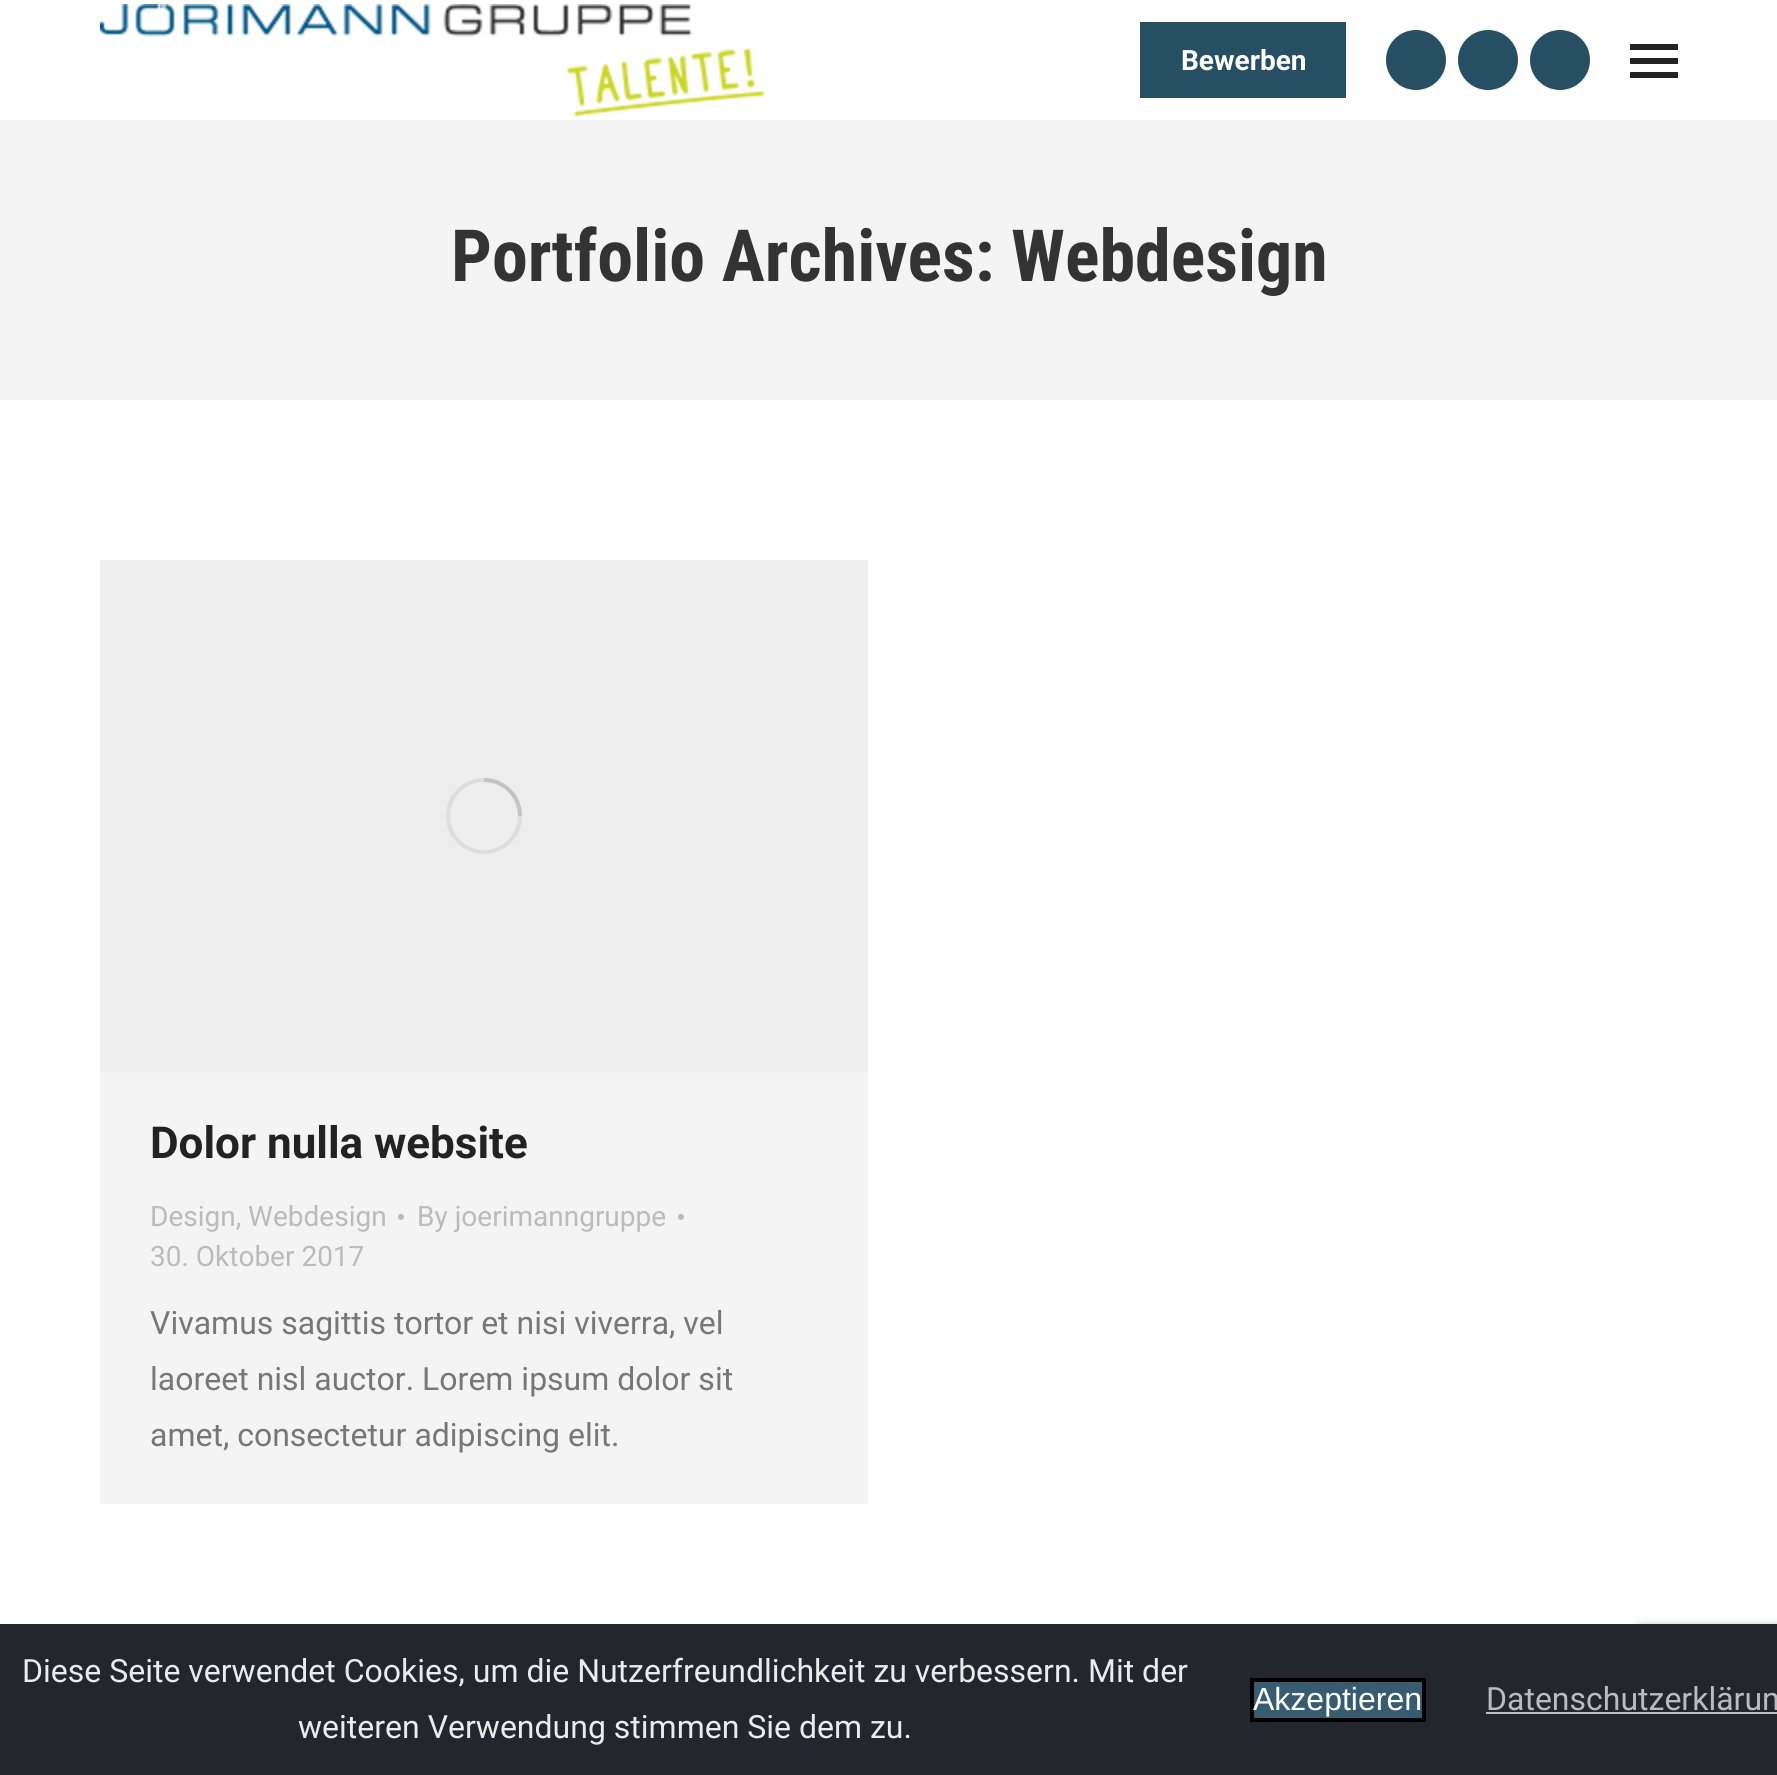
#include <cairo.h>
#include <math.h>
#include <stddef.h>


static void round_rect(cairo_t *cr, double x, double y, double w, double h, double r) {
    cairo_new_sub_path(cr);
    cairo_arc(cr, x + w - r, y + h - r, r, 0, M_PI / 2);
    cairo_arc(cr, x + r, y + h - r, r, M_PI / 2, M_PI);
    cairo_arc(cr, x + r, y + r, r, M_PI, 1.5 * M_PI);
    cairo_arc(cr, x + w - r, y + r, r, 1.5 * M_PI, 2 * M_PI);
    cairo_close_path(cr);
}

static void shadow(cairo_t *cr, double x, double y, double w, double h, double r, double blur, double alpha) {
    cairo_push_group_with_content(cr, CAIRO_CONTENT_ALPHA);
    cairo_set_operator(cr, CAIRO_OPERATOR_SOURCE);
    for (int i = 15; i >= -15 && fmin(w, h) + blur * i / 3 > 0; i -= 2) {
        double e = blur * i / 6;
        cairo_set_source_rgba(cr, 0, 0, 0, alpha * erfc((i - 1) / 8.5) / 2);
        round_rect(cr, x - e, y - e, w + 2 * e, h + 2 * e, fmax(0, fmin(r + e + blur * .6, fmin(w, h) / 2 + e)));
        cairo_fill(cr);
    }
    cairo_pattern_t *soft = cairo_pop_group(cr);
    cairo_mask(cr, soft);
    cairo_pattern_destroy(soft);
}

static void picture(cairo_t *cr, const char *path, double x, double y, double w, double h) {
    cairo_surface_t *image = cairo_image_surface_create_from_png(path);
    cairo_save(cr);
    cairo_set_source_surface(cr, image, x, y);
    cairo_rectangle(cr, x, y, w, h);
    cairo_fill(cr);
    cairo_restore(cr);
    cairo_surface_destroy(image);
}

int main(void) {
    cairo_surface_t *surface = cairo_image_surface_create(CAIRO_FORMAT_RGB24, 1777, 1775);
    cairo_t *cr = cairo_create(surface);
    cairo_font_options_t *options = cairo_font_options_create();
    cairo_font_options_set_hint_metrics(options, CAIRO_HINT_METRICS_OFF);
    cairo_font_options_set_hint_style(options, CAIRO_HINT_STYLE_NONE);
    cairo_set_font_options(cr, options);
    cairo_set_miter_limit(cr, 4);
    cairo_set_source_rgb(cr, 1, 1, 1);
    cairo_paint(cr);
    picture(cr, "img1.png", 100, 4, 664, 112);
    cairo_set_source_rgb(cr, 0.153, 0.31, 0.392);
    cairo_rectangle(cr, 1140, 22, 206, 76);
    cairo_fill(cr);
    cairo_select_font_face(cr, "Roboto", CAIRO_FONT_SLANT_NORMAL, CAIRO_FONT_WEIGHT_BOLD);
    cairo_set_font_size(cr, 28);
    cairo_set_source_rgb(cr, 1, 1, 1);
    cairo_move_to(cr, 1181, 70);
    cairo_show_text(cr, "Bewerben");
    cairo_set_source_rgb(cr, 0.153, 0.31, 0.392);
    cairo_new_path(cr);
    cairo_arc(cr, 1416, 60, 30, 0, 2 * M_PI);
    cairo_fill(cr);
    cairo_arc(cr, 1488, 60, 30, 0, 2 * M_PI);
    cairo_fill(cr);
    cairo_arc(cr, 1560, 60, 30, 0, 2 * M_PI);
    cairo_fill(cr);
    cairo_set_source_rgb(cr, 0.133, 0.133, 0.133);
    cairo_rectangle(cr, 1630, 44, 48, 6);
    cairo_fill(cr);
    cairo_rectangle(cr, 1630, 58, 48, 6);
    cairo_fill(cr);
    cairo_rectangle(cr, 1630, 72, 48, 6);
    cairo_fill(cr);
    cairo_set_source_rgb(cr, 0.957, 0.957, 0.957);
    cairo_rectangle(cr, 0, 120, 1777, 280);
    cairo_fill(cr);
    cairo_select_font_face(cr, "Roboto Condensed", CAIRO_FONT_SLANT_NORMAL, CAIRO_FONT_WEIGHT_BOLD);
    cairo_set_font_size(cr, 72);
    cairo_set_source_rgb(cr, 0.2, 0.2, 0.2);
    cairo_move_to(cr, 451, 281);
    cairo_show_text(cr, "Portfolio Archives: Webdesign");
    cairo_set_source_rgb(cr, 0.957, 0.957, 0.957);
    cairo_rectangle(cr, 100, 1072, 768, 432);
    cairo_fill(cr);
    cairo_set_source_rgb(cr, 0.929, 0.929, 0.929);
    cairo_rectangle(cr, 100, 560, 768, 512);
    cairo_fill(cr);
    cairo_arc(cr, 484, 816, 36, 0, 2 * M_PI);
    cairo_set_source_rgb(cr, 0.867, 0.867, 0.867);
    cairo_set_line_width(cr, 4);
    cairo_stroke(cr);
    cairo_new_path(cr);
    cairo_move_to(cr, 520, 816);
    cairo_curve_to(cr, 520, 796, 504, 780, 484, 780);
    cairo_set_source_rgba(cr, 0.467, 0.467, 0.467, 0.25);
    cairo_stroke(cr);
    cairo_select_font_face(cr, "Roboto", CAIRO_FONT_SLANT_NORMAL, CAIRO_FONT_WEIGHT_BOLD);
    cairo_set_font_size(cr, 44);
    cairo_set_source_rgb(cr, 0.133, 0.133, 0.133);
    cairo_move_to(cr, 150, 1158);
    cairo_show_text(cr, "Dolor nulla website");
    cairo_select_font_face(cr, "Roboto", CAIRO_FONT_SLANT_NORMAL, CAIRO_FONT_WEIGHT_NORMAL);
    cairo_set_font_size(cr, 28);
    cairo_set_source_rgb(cr, 0.733, 0.733, 0.733);
    cairo_move_to(cr, 150, 1226);
    cairo_show_text(cr, "Design, Webdesign");
    cairo_new_path(cr);
    cairo_arc(cr, 401, 1217, 3, 0, 2 * M_PI);
    cairo_fill(cr);
    cairo_move_to(cr, 417, 1226);
    cairo_show_text(cr, "By joerimanngruppe");
    cairo_new_path(cr);
    cairo_arc(cr, 681, 1217, 3, 0, 2 * M_PI);
    cairo_fill(cr);
    cairo_move_to(cr, 150, 1266);
    cairo_show_text(cr, "30. Oktober 2017");
    cairo_set_font_size(cr, 32);
    cairo_set_source_rgb(cr, 0.467, 0.467, 0.467);
    cairo_move_to(cr, 150, 1334);
    cairo_show_text(cr, "Vivamus sagittis tortor et nisi viverra, vel");
    cairo_move_to(cr, 150, 1390);
    cairo_show_text(cr, "laoreet nisl auctor. Lorem ipsum dolor sit");
    cairo_move_to(cr, 150, 1446);
    cairo_show_text(cr, "amet, consectetur adipiscing elit.");
    cairo_set_source_rgb(cr, 0.502, 0.502, 0.502);
    shadow(cr, 1638, 1628, 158, 120, 4, 5, 1);
    cairo_set_source_rgb(cr, 0.137, 0.149, 0.176);
    cairo_rectangle(cr, 0, 1624, 1777, 151);
    cairo_fill(cr);
    cairo_set_source_rgb(cr, 0.918, 0.918, 0.918);
    cairo_move_to(cr, 22, 1682);
    cairo_show_text(cr, "Diese Seite verwendet Cookies, um die Nutzerfreundlichkeit zu verbessern. Mit der");
    cairo_move_to(cr, 298, 1738);
    cairo_show_text(cr, "weiteren Verwendung stimmen Sie dem zu.");
    cairo_set_source_rgb(cr, 0.216, 0.357, 0.435);
    cairo_rectangle(cr, 1252, 1680, 172, 40);
    cairo_fill_preserve(cr);
    cairo_set_source_rgb(cr, 0, 0, 0);
    cairo_stroke(cr);
    cairo_select_font_face(cr, "Liberation Sans", CAIRO_FONT_SLANT_NORMAL, CAIRO_FONT_WEIGHT_NORMAL);
    cairo_set_source_rgb(cr, 1, 1, 1);
    cairo_move_to(cr, 1253, 1710);
    cairo_show_text(cr, "Akzeptieren");
    cairo_select_font_face(cr, "Roboto", CAIRO_FONT_SLANT_NORMAL, CAIRO_FONT_WEIGHT_NORMAL);
    cairo_set_source_rgb(cr, 0.733, 0.733, 0.733);
    cairo_move_to(cr, 1486, 1710);
    cairo_show_text(cr, "Datenschutzerklärun");
    cairo_set_source_rgb(cr, 0.749, 0.749, 0.749);
    cairo_rectangle(cr, 1486, 1712, 291, 2);
    cairo_fill(cr);
    cairo_surface_write_to_png(surface, "page.png");
    cairo_font_options_destroy(options);
    cairo_destroy(cr);
    cairo_surface_destroy(surface);
    return 0;
}
